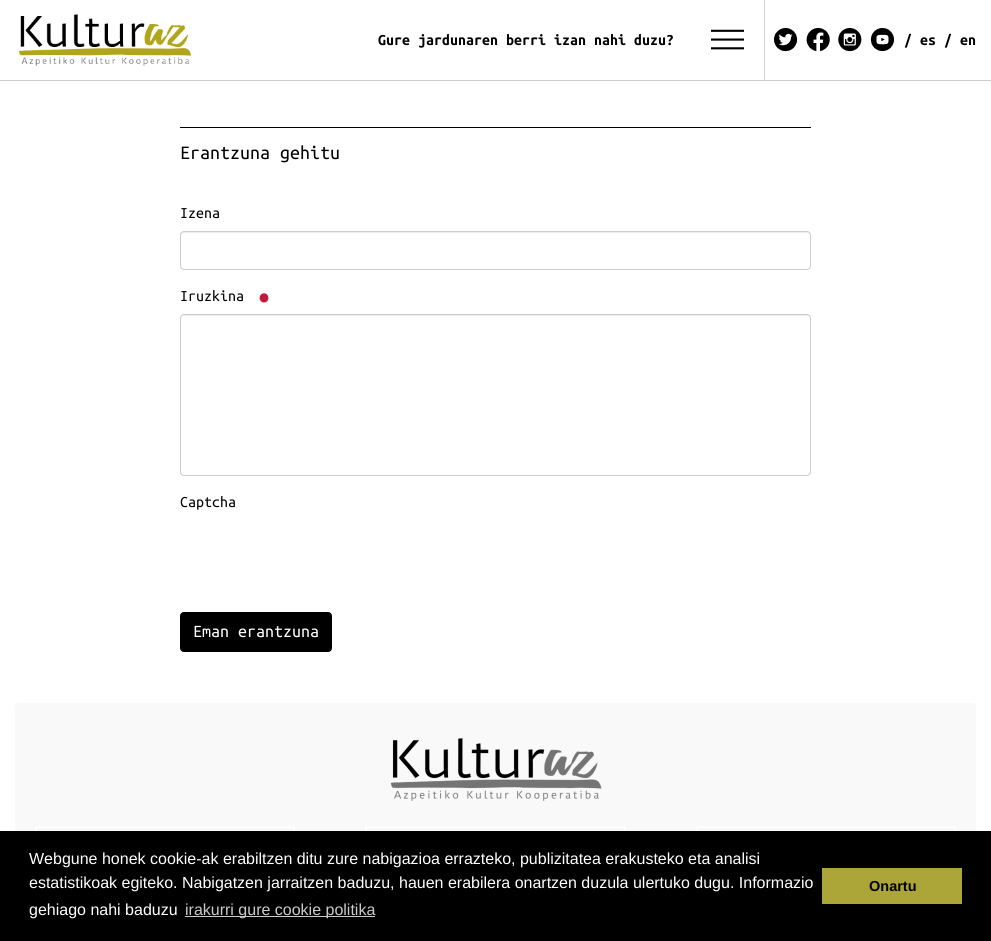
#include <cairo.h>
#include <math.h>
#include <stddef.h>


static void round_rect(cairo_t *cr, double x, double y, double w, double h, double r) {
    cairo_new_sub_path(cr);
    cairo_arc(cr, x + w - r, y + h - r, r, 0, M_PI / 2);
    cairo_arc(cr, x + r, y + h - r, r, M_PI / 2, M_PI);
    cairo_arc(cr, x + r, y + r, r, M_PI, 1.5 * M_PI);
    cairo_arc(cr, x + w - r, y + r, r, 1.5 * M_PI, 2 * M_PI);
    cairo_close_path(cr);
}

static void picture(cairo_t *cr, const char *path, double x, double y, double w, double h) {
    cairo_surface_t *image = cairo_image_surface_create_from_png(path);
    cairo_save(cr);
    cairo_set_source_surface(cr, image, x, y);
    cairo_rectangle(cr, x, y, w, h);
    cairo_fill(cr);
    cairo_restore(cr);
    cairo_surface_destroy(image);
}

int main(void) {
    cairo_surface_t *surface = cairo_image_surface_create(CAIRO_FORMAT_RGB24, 991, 941);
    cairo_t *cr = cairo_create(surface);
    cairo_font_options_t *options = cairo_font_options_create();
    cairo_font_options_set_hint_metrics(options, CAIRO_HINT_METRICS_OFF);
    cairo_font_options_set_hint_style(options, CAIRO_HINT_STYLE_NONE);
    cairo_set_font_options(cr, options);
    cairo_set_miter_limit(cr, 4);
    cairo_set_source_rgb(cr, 1, 1, 1);
    cairo_paint(cr);
    cairo_set_source_rgb(cr, 0.8, 0.8, 0.8);
    cairo_rectangle(cr, 0, 80, 991, 1);
    cairo_fill(cr);
    cairo_set_source_rgb(cr, 0.82, 0.82, 0.82);
    cairo_rectangle(cr, 764, 0, 1, 80);
    cairo_fill(cr);
    picture(cr, "img1.png", 19, 14, 173, 52);
    cairo_select_font_face(cr, "Ubuntu Mono", CAIRO_FONT_SLANT_NORMAL, CAIRO_FONT_WEIGHT_BOLD);
    cairo_set_font_size(cr, 16);
    cairo_set_source_rgb(cr, 0, 0, 0);
    cairo_move_to(cr, 378, 45);
    cairo_show_text(cr, "Gure jardunaren berri izan nahi duzu?");
    picture(cr, "img2.png", 711, 29, 33, 21);
    picture(cr, "img3.png", 774, 28, 24, 24);
    picture(cr, "img4.png", 806, 28, 24, 23);
    picture(cr, "img5.png", 838, 28, 24, 24);
    picture(cr, "img6.png", 870, 28, 24, 24);
    cairo_move_to(cr, 904, 45);
    cairo_show_text(cr, "/ es / en");
    cairo_rectangle(cr, 180, 127, 631, 1);
    cairo_fill(cr);
    cairo_select_font_face(cr, "Ubuntu Mono", CAIRO_FONT_SLANT_NORMAL, CAIRO_FONT_WEIGHT_NORMAL);
    cairo_set_font_size(cr, 20);
    cairo_move_to(cr, 180, 159);
    cairo_show_text(cr, "Erantzuna gehitu");
    cairo_set_font_size(cr, 16);
    cairo_move_to(cr, 180, 218);
    cairo_show_text(cr, "Izena");
    cairo_set_source_rgb(cr, 0.925, 0.925, 0.925);
    cairo_new_path(cr);
    cairo_move_to(cr, 184, 233);
    cairo_line_to(cr, 807, 233);
    cairo_curve_to(cr, 809, 233, 810, 234, 810, 236);
    cairo_line_to(cr, 810, 235);
    cairo_curve_to(cr, 810, 233, 809, 232, 807, 232);
    cairo_line_to(cr, 184, 232);
    cairo_curve_to(cr, 182, 232, 181, 233, 181, 235);
    cairo_line_to(cr, 181, 236);
    cairo_curve_to(cr, 181, 234, 182, 233, 184, 233);
    cairo_close_path(cr);
    cairo_fill(cr);
    round_rect(cr, 180.5, 231.5, 630, 38, 3.5);
    cairo_set_source_rgb(cr, 0.8, 0.8, 0.8);
    cairo_set_line_width(cr, 1);
    cairo_stroke(cr);
    cairo_set_source_rgb(cr, 0, 0, 0);
    cairo_move_to(cr, 180, 301);
    cairo_show_text(cr, "Iruzkina");
    cairo_set_font_size(cr, 32);
    cairo_set_source_rgb(cr, 0.769, 0.094, 0.235);
    cairo_move_to(cr, 256, 308);
    cairo_show_text(cr, "•");
    cairo_set_source_rgb(cr, 0.925, 0.925, 0.925);
    cairo_new_path(cr);
    cairo_move_to(cr, 184, 316);
    cairo_line_to(cr, 807, 316);
    cairo_curve_to(cr, 809, 316, 810, 317, 810, 319);
    cairo_line_to(cr, 810, 318);
    cairo_curve_to(cr, 810, 316, 809, 315, 807, 315);
    cairo_line_to(cr, 184, 315);
    cairo_curve_to(cr, 182, 315, 181, 316, 181, 318);
    cairo_line_to(cr, 181, 319);
    cairo_curve_to(cr, 181, 317, 182, 316, 184, 316);
    cairo_close_path(cr);
    cairo_fill(cr);
    round_rect(cr, 180.5, 314.5, 630, 161, 3.5);
    cairo_set_source_rgb(cr, 0.8, 0.8, 0.8);
    cairo_stroke(cr);
    cairo_set_font_size(cr, 16);
    cairo_set_source_rgb(cr, 0, 0, 0);
    cairo_move_to(cr, 180, 507);
    cairo_show_text(cr, "Captcha");
    round_rect(cr, 180.5, 612.5, 151, 39, 3.5);
    cairo_fill_preserve(cr);
    cairo_stroke(cr);
    cairo_set_font_size(cr, 18);
    cairo_set_source_rgb(cr, 1, 1, 1);
    cairo_move_to(cr, 193, 637);
    cairo_show_text(cr, "Eman erantzuna");
    cairo_set_source_rgb(cr, 0.973, 0.973, 0.973);
    round_rect(cr, 15, 703, 961, 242, 4);
    cairo_fill(cr);
    picture(cr, "img7.png", 390, 738, 212, 63);
    cairo_rectangle(cr, 36, 827, 258, 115);
    cairo_set_source_rgb(cr, 1, 1, 1);
    cairo_set_line_width(cr, 2);
    cairo_stroke(cr);
    cairo_rectangle(cr, 366, 827, 259, 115);
    cairo_stroke(cr);
    cairo_rectangle(cr, 697, 827, 258, 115);
    cairo_stroke(cr);
    cairo_set_source_rgb(cr, 0, 0, 0);
    cairo_rectangle(cr, 0, 831, 991, 110);
    cairo_fill(cr);
    cairo_select_font_face(cr, "Liberation Sans", CAIRO_FONT_SLANT_NORMAL, CAIRO_FONT_WEIGHT_NORMAL);
    cairo_set_font_size(cr, 16);
    cairo_set_source_rgb(cr, 1, 1, 1);
    cairo_move_to(cr, 29, 864);
    cairo_show_text(cr, "Webgune honek cookie-ak erabiltzen ditu zure nabigazioa errazteko, publizitatea erakusteko eta analisi");
    cairo_move_to(cr, 29, 888);
    cairo_show_text(cr, "estatistikoak egiteko. Nabigatzen jarraitzen baduzu, hauen erabilera onartzen duzula ulertuko dugu. Informazio");
    cairo_move_to(cr, 29, 915);
    cairo_show_text(cr, "gehiago nahi baduzu");
    cairo_set_source_rgb(cr, 0.8, 0.8, 0.8);
    cairo_rectangle(cr, 185, 916, 190, 1);
    cairo_fill(cr);
    cairo_move_to(cr, 185, 915);
    cairo_show_text(cr, "irakurri gure cookie politika");
    cairo_set_source_rgb(cr, 0.675, 0.651, 0.22);
    cairo_rectangle(cr, 822, 868, 140, 36);
    cairo_fill(cr);
    cairo_select_font_face(cr, "Liberation Sans", CAIRO_FONT_SLANT_NORMAL, CAIRO_FONT_WEIGHT_BOLD);
    cairo_set_font_size(cr, 14.5);
    cairo_set_source_rgb(cr, 0, 0, 0);
    cairo_move_to(cr, 869, 891);
    cairo_show_text(cr, "Onartu");
    cairo_surface_write_to_png(surface, "page.png");
    cairo_font_options_destroy(options);
    cairo_destroy(cr);
    cairo_surface_destroy(surface);
    return 0;
}
